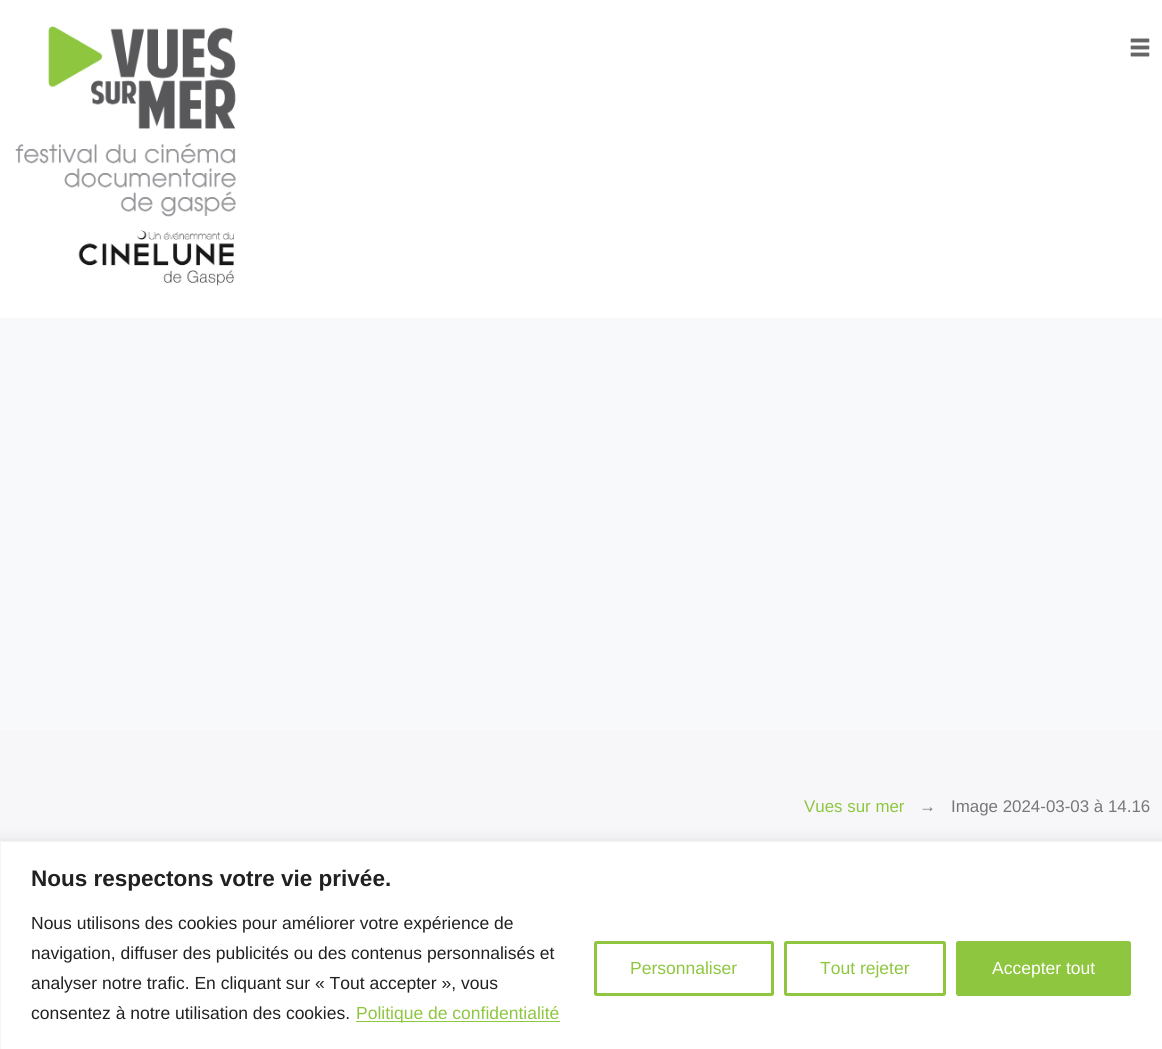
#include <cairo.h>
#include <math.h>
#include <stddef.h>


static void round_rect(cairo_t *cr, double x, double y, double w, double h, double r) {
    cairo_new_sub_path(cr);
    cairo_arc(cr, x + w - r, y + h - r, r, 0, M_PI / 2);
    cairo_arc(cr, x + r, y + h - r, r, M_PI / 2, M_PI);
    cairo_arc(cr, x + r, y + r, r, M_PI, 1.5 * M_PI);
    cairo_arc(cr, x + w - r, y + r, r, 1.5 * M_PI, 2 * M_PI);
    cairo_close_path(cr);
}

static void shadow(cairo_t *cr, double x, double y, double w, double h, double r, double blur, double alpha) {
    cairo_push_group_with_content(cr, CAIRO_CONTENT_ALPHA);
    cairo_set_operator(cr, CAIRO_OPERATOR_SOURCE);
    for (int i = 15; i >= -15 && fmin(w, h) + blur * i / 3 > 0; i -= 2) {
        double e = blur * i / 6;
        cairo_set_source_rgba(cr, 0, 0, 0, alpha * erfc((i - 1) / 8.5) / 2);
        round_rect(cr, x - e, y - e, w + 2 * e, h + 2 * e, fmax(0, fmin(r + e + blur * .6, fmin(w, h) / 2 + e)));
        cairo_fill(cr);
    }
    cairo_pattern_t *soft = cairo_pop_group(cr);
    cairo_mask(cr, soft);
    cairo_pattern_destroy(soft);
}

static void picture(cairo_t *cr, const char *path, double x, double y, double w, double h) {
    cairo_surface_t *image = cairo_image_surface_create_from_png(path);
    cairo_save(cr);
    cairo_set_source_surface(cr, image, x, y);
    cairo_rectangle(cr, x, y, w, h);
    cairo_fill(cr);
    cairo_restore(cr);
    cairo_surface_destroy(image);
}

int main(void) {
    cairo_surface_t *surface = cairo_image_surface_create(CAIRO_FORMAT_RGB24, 1162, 1049);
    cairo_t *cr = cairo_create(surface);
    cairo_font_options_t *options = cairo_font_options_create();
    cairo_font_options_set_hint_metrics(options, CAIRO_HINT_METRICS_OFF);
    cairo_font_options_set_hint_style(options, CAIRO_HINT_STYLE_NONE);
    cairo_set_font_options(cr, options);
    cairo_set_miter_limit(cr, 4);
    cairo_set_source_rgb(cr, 1, 1, 1);
    cairo_paint(cr);
    picture(cr, "img1.png", 15, 26, 221, 260);
    picture(cr, "img2.png", 1130, 38, 20, 19);
    cairo_set_source_rgb(cr, 0.969, 0.973, 0.98);
    cairo_rectangle(cr, 0, 318, 1162, 412);
    cairo_fill(cr);
    cairo_set_source_rgb(cr, 0.965, 0.965, 0.973);
    cairo_rectangle(cr, 0, 730, 1162, 111);
    cairo_fill(cr);
    cairo_select_font_face(cr, "Liberation Sans", CAIRO_FONT_SLANT_NORMAL, CAIRO_FONT_WEIGHT_NORMAL);
    cairo_set_font_size(cr, 16.9);
    cairo_set_source_rgb(cr, 0.557, 0.776, 0.247);
    cairo_move_to(cr, 804, 812);
    cairo_show_text(cr, "Vues sur mer");
    cairo_set_source_rgb(cr, 0.467, 0.467, 0.467);
    cairo_move_to(cr, 919, 812);
    cairo_show_text(cr, "→");
    cairo_move_to(cr, 951, 812);
    cairo_show_text(cr, "Image 2024-03-03 à 14.16");
    cairo_set_source_rgb(cr, 0.675, 0.671, 0.671);
    shadow(cr, 0, 840, 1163, 209, 0, 6, 0.3);
    cairo_set_source_rgb(cr, 1, 1, 1);
    cairo_rectangle(cr, 0.5, 841.5, 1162, 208);
    cairo_fill_preserve(cr);
    cairo_set_source_rgb(cr, 0.957, 0.957, 0.957);
    cairo_set_line_width(cr, 1);
    cairo_stroke(cr);
    cairo_select_font_face(cr, "Liberation Sans", CAIRO_FONT_SLANT_NORMAL, CAIRO_FONT_WEIGHT_BOLD);
    cairo_set_font_size(cr, 22.5);
    cairo_set_source_rgb(cr, 0.129, 0.129, 0.129);
    cairo_move_to(cr, 31, 886);
    cairo_show_text(cr, "Nous respectons votre vie privée.");
    cairo_select_font_face(cr, "Liberation Sans", CAIRO_FONT_SLANT_NORMAL, CAIRO_FONT_WEIGHT_NORMAL);
    cairo_set_font_size(cr, 17.5);
    cairo_move_to(cr, 31, 929);
    cairo_show_text(cr, "Nous utilisons des cookies pour améliorer votre expérience de");
    cairo_move_to(cr, 31, 959);
    cairo_show_text(cr, "navigation, diffuser des publicités ou des contenus personnalisés et");
    cairo_move_to(cr, 31, 989);
    cairo_show_text(cr, "analyser notre trafic. En cliquant sur « Tout accepter », vous");
    cairo_move_to(cr, 31, 1019);
    cairo_show_text(cr, "consentez à notre utilisation des cookies.");
    cairo_set_source_rgb(cr, 0.557, 0.776, 0.247);
    cairo_rectangle(cr, 356, 1021, 204, 1);
    cairo_fill(cr);
    cairo_move_to(cr, 356, 1019);
    cairo_show_text(cr, "Politique de confidentialité");
    round_rect(cr, 595.5, 942.5, 177, 52, 1);
    cairo_set_line_width(cr, 3);
    cairo_stroke(cr);
    cairo_move_to(cr, 630, 974);
    cairo_show_text(cr, "Personnaliser");
    round_rect(cr, 785.5, 942.5, 159, 52, 1);
    cairo_stroke(cr);
    cairo_move_to(cr, 820, 974);
    cairo_show_text(cr, "Tout rejeter");
    round_rect(cr, 957.5, 942.5, 172, 52, 1);
    cairo_fill_preserve(cr);
    cairo_stroke(cr);
    cairo_set_source_rgb(cr, 1, 1, 1);
    cairo_move_to(cr, 992, 974);
    cairo_show_text(cr, "Accepter tout");
    cairo_surface_write_to_png(surface, "page.png");
    cairo_font_options_destroy(options);
    cairo_destroy(cr);
    cairo_surface_destroy(surface);
    return 0;
}
